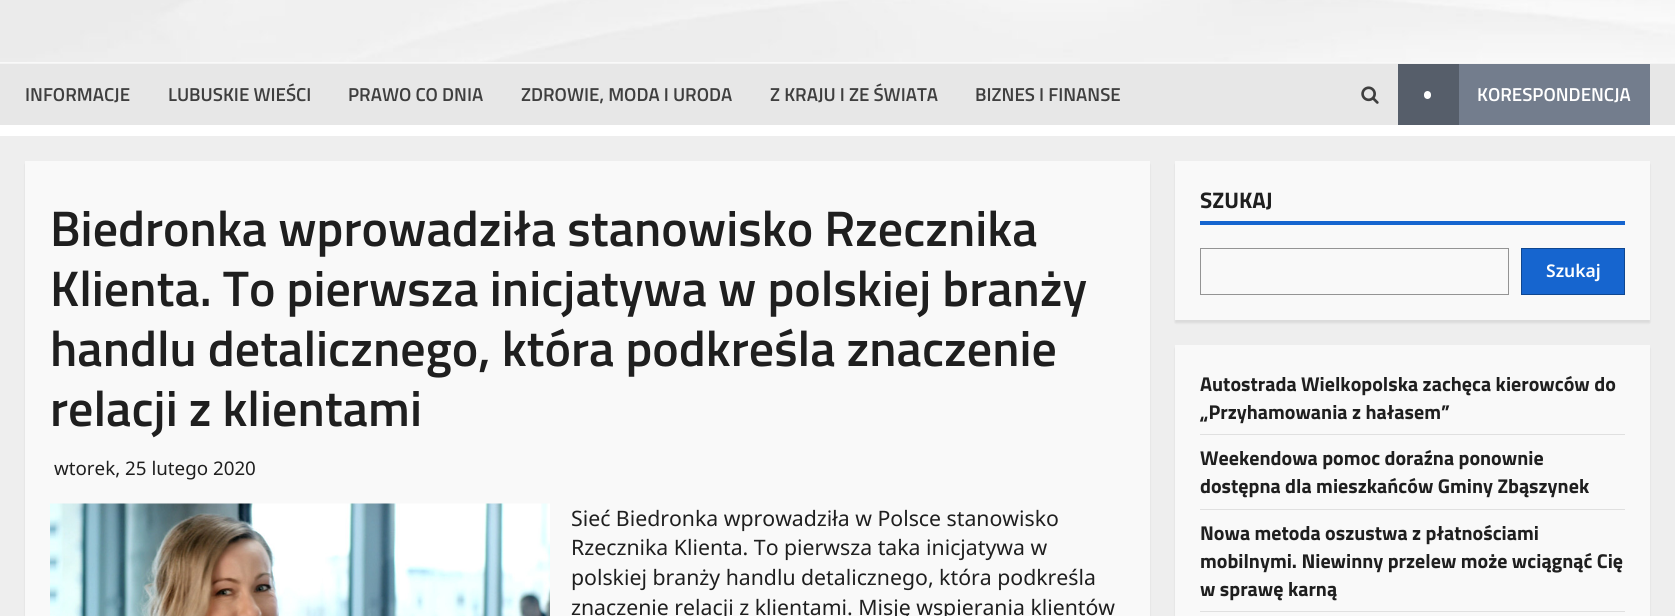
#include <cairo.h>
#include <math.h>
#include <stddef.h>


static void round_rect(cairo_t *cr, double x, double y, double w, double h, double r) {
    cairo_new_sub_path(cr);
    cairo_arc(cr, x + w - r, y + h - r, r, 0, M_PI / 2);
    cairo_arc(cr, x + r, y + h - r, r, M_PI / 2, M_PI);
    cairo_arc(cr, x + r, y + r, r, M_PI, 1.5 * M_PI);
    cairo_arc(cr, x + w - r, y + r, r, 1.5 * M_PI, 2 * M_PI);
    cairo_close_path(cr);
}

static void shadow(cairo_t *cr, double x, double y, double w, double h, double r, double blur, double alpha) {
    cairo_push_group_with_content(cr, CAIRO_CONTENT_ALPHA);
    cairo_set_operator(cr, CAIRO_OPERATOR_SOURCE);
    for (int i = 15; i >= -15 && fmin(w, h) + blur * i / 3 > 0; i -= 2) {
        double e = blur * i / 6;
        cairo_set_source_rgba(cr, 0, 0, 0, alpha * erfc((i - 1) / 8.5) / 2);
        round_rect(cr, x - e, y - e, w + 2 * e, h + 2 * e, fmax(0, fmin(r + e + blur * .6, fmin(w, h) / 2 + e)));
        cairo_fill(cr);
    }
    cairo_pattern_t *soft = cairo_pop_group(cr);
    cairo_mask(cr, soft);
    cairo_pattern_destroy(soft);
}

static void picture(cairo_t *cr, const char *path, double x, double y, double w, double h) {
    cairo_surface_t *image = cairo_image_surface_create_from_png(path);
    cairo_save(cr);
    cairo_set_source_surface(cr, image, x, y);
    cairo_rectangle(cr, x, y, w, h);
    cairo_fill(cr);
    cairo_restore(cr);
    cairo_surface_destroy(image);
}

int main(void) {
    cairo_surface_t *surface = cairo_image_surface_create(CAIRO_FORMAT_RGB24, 1675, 616);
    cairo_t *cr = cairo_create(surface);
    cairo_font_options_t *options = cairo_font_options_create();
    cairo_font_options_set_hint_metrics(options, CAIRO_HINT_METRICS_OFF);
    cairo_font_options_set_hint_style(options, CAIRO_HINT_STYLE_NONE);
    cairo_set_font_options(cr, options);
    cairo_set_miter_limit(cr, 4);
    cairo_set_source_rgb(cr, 0.933, 0.933, 0.933);
    cairo_paint(cr);
    cairo_set_source_rgb(cr, 0.976, 0.976, 0.976);
    cairo_rectangle(cr, 0, 62, 1675, 1);
    cairo_fill(cr);
    picture(cr, "img1.png", 0, 0, 1675, 62);
    cairo_set_source_rgb(cr, 0.906, 0.906, 0.906);
    cairo_rectangle(cr, 0, 64, 1675, 61);
    cairo_fill(cr);
    cairo_set_source_rgb(cr, 0.957, 0.957, 0.957);
    cairo_rectangle(cr, 0, 63, 1675, 1);
    cairo_fill(cr);
    cairo_set_source_rgb(cr, 1, 1, 1);
    cairo_rectangle(cr, 0, 125, 1675, 11);
    cairo_fill(cr);
    cairo_select_font_face(cr, "Titillium Web SemiBold", CAIRO_FONT_SLANT_NORMAL, CAIRO_FONT_WEIGHT_NORMAL);
    cairo_set_font_size(cr, 18.75);
    cairo_set_source_rgb(cr, 0.247, 0.247, 0.247);
    cairo_move_to(cr, 25, 101);
    cairo_show_text(cr, "INFORMACJE");
    cairo_move_to(cr, 168, 101);
    cairo_show_text(cr, "LUBUSKIE WIEŚCI");
    cairo_move_to(cr, 348, 101);
    cairo_show_text(cr, "PRAWO CO DNIA");
    cairo_move_to(cr, 521, 101);
    cairo_show_text(cr, "ZDROWIE, MODA I URODA");
    cairo_move_to(cr, 770, 101);
    cairo_show_text(cr, "Z KRAJU I ZE ŚWIATA");
    cairo_move_to(cr, 975, 101);
    cairo_show_text(cr, "BIZNES I FINANSE");
    picture(cr, "img2.png", 1361, 86, 18, 18);
    cairo_set_source_rgb(cr, 0.451, 0.49, 0.553);
    cairo_rectangle(cr, 1459, 64, 191, 61);
    cairo_fill(cr);
    cairo_set_source_rgb(cr, 0.337, 0.369, 0.416);
    cairo_rectangle(cr, 1398, 64, 61, 61);
    cairo_fill(cr);
    cairo_set_source_rgb(cr, 1, 1, 1);
    round_rect(cr, 1424, 91, 7, 8, 3.5);
    cairo_fill(cr);
    cairo_move_to(cr, 1477, 101);
    cairo_show_text(cr, "KORESPONDENCJA");
    cairo_set_source_rgb(cr, 0, 0, 0);
    shadow(cr, 25, 164, 1125, 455, 0, 1, 0.08);
    cairo_set_source_rgb(cr, 0.976, 0.976, 0.976);
    cairo_rectangle(cr, 25, 161, 1125, 455);
    cairo_fill(cr);
    cairo_set_font_size(cr, 50);
    cairo_set_source_rgb(cr, 0.122, 0.122, 0.122);
    cairo_move_to(cr, 50, 246);
    cairo_show_text(cr, "Biedronka wprowadziła stanowisko Rzecznika");
    cairo_move_to(cr, 50, 306);
    cairo_show_text(cr, "Klienta. To pierwsza inicjatywa w polskiej branży");
    cairo_move_to(cr, 50, 366);
    cairo_show_text(cr, "handlu detalicznego, która podkreśla znaczenie");
    cairo_move_to(cr, 50, 426);
    cairo_show_text(cr, "relacji z klientami");
    cairo_select_font_face(cr, "Noto Sans", CAIRO_FONT_SLANT_NORMAL, CAIRO_FONT_WEIGHT_NORMAL);
    cairo_set_font_size(cr, 18.75);
    cairo_move_to(cr, 54, 475);
    cairo_show_text(cr, "wtorek, 25 lutego 2020");
    picture(cr, "img3.png", 50, 503, 500, 113);
    cairo_set_font_size(cr, 21.25);
    cairo_move_to(cr, 571, 526);
    cairo_show_text(cr, "Sieć Biedronka wprowadziła w Polsce stanowisko");
    cairo_move_to(cr, 571, 555);
    cairo_show_text(cr, "Rzecznika Klienta. To pierwsza taka inicjatywa w");
    cairo_move_to(cr, 571, 585);
    cairo_show_text(cr, "polskiej branży handlu detalicznego, która podkreśla");
    cairo_move_to(cr, 571, 615);
    cairo_show_text(cr, "znaczenie relacji z klientami. Misję wspierania klientów");
    cairo_set_source_rgb(cr, 0, 0, 0);
    shadow(cr, 1175, 164, 475, 159, 0, 1, 0.08);
    cairo_set_source_rgb(cr, 0.976, 0.976, 0.976);
    cairo_rectangle(cr, 1175, 161, 475, 159);
    cairo_fill(cr);
    cairo_select_font_face(cr, "Titillium Web", CAIRO_FONT_SLANT_NORMAL, CAIRO_FONT_WEIGHT_BOLD);
    cairo_set_font_size(cr, 22.5);
    cairo_set_source_rgb(cr, 0.122, 0.122, 0.122);
    cairo_move_to(cr, 1200, 208);
    cairo_show_text(cr, "SZUKAJ");
    cairo_set_source_rgb(cr, 0.086, 0.396, 0.812);
    cairo_rectangle(cr, 1200, 221, 425, 4);
    cairo_fill(cr);
    cairo_rectangle(cr, 1200.5, 248.5, 308, 46);
    cairo_set_source_rgb(cr, 0.58, 0.58, 0.58);
    cairo_set_line_width(cr, 1);
    cairo_stroke(cr);
    cairo_set_source_rgb(cr, 0.086, 0.396, 0.812);
    cairo_rectangle(cr, 1521.5, 248.5, 103, 46);
    cairo_fill_preserve(cr);
    cairo_set_source_rgb(cr, 0.059, 0.278, 0.569);
    cairo_stroke(cr);
    cairo_select_font_face(cr, "Noto Sans SemiBold", CAIRO_FONT_SLANT_NORMAL, CAIRO_FONT_WEIGHT_NORMAL);
    cairo_set_font_size(cr, 17.5);
    cairo_set_source_rgb(cr, 1, 1, 1);
    cairo_move_to(cr, 1546, 277);
    cairo_show_text(cr, "Szukaj");
    cairo_set_source_rgb(cr, 0, 0, 0);
    shadow(cr, 1175, 348, 475, 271, 0, 1, 0.08);
    cairo_set_source_rgb(cr, 0.976, 0.976, 0.976);
    cairo_rectangle(cr, 1175, 345, 475, 271);
    cairo_fill(cr);
    cairo_set_source_rgb(cr, 0.878, 0.878, 0.878);
    cairo_rectangle(cr, 1200, 434, 425, 1);
    cairo_fill(cr);
    cairo_select_font_face(cr, "Titillium Web", CAIRO_FONT_SLANT_NORMAL, CAIRO_FONT_WEIGHT_BOLD);
    cairo_set_font_size(cr, 20);
    cairo_set_source_rgb(cr, 0.122, 0.122, 0.122);
    cairo_move_to(cr, 1200, 391);
    cairo_show_text(cr, "Autostrada Wielkopolska zachęca kierowców do");
    cairo_move_to(cr, 1200, 419);
    cairo_show_text(cr, "„Przyhamowania z hałasem”");
    cairo_set_source_rgb(cr, 0.878, 0.878, 0.878);
    cairo_rectangle(cr, 1200, 509, 425, 1);
    cairo_fill(cr);
    cairo_set_source_rgb(cr, 0.122, 0.122, 0.122);
    cairo_move_to(cr, 1200, 465);
    cairo_show_text(cr, "Weekendowa pomoc doraźna ponownie");
    cairo_move_to(cr, 1200, 493);
    cairo_show_text(cr, "dostępna dla mieszkańców Gminy Zbąszynek");
    cairo_set_source_rgb(cr, 0.878, 0.878, 0.878);
    cairo_rectangle(cr, 1200, 611, 425, 1);
    cairo_fill(cr);
    cairo_set_source_rgb(cr, 0.122, 0.122, 0.122);
    cairo_move_to(cr, 1200, 540);
    cairo_show_text(cr, "Nowa metoda oszustwa z płatnościami");
    cairo_move_to(cr, 1200, 568);
    cairo_show_text(cr, "mobilnymi. Niewinny przelew może wciągnąć Cię");
    cairo_move_to(cr, 1200, 596);
    cairo_show_text(cr, "w sprawę karną");
    cairo_surface_write_to_png(surface, "page.png");
    cairo_font_options_destroy(options);
    cairo_destroy(cr);
    cairo_surface_destroy(surface);
    return 0;
}
